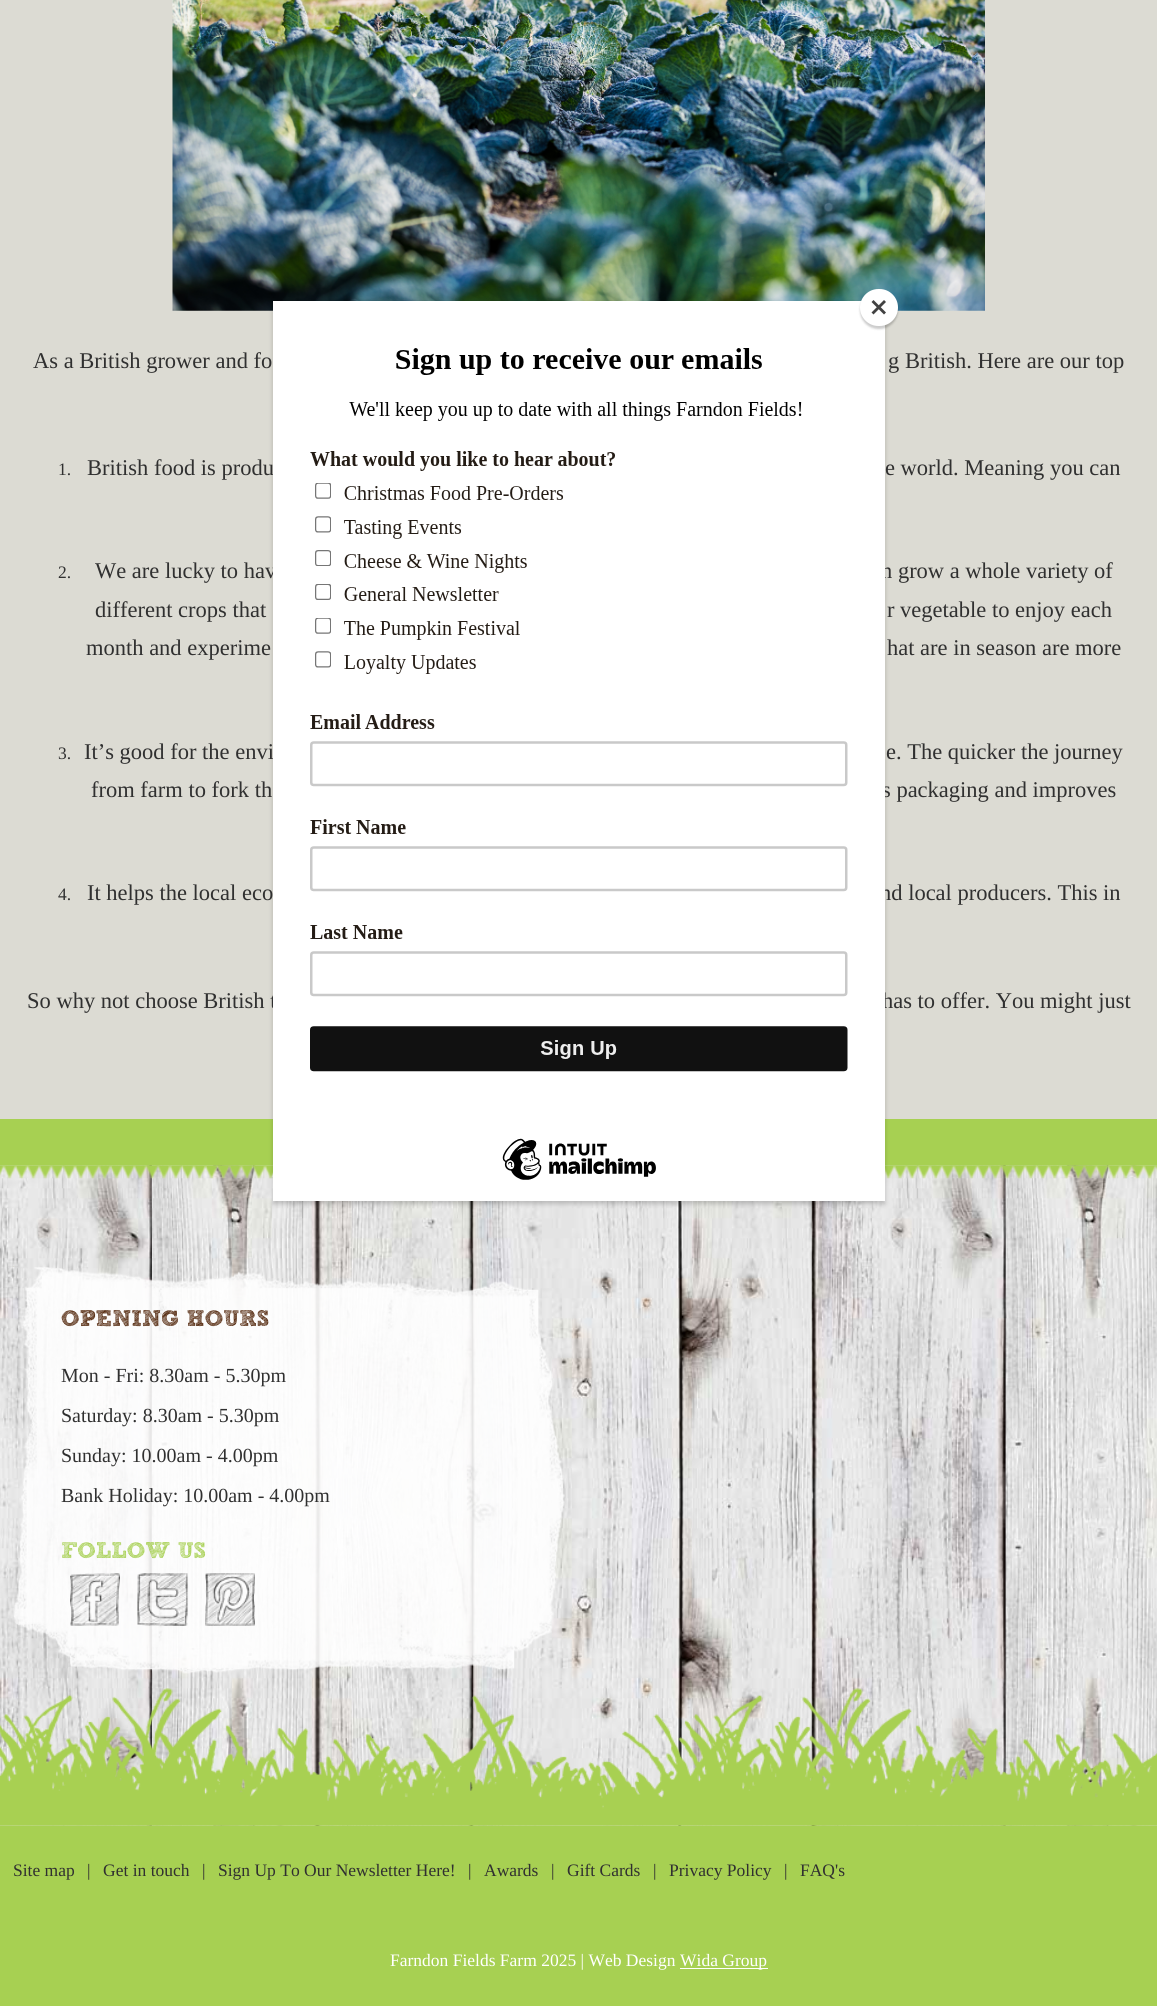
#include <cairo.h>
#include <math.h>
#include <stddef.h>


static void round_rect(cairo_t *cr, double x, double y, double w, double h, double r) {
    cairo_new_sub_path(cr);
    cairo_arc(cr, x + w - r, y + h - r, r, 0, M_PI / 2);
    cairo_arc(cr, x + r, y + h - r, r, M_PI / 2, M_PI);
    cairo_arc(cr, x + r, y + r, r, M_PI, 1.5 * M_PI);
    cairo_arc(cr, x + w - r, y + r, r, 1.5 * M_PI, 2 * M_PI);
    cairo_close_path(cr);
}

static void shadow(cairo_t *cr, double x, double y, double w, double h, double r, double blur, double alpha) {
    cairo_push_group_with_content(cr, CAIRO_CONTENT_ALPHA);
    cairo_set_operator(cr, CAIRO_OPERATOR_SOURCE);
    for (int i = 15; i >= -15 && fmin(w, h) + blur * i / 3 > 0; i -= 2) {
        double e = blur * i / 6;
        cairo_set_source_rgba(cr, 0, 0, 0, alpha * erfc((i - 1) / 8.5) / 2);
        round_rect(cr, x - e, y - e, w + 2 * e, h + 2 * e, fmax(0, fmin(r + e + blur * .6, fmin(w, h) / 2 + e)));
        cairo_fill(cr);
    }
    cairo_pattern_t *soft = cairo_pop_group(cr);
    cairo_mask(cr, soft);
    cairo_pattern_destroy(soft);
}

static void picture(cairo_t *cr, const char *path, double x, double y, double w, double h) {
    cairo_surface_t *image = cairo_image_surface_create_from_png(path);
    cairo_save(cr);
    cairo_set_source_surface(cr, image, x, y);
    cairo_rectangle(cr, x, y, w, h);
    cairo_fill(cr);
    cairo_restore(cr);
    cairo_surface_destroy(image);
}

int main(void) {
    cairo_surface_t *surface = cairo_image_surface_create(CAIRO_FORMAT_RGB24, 1157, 2006);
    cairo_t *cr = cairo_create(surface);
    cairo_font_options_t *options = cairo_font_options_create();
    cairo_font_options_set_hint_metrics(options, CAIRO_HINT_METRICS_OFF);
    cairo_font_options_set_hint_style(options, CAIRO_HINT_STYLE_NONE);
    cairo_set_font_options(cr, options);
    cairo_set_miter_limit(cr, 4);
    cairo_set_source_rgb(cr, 0.863, 0.859, 0.827);
    cairo_paint(cr);
    picture(cr, "img2.png", 172, 0, 813, 311);
    cairo_set_source_rgb(cr, 0.655, 0.816, 0.322);
    cairo_rectangle(cr, 0, 1119, 1157, 47);
    cairo_fill(cr);
    picture(cr, "img3.png", 0, 1165, 1157, 661);
    picture(cr, "img4.png", 0, 1165, 1157, 14);
    cairo_set_source_rgb(cr, 0, 0, 0);
    shadow(cr, 273, 304, 612, 900, 0, 2.5, 0.2);
    cairo_select_font_face(cr, "Liberation Serif", CAIRO_FONT_SLANT_NORMAL, CAIRO_FONT_WEIGHT_NORMAL);
    cairo_set_font_size(cr, 22.5);
    cairo_set_source_rgb(cr, 0.188, 0.188, 0.188);
    cairo_move_to(cr, 87, 475);
    cairo_show_text(cr, "British food is produ");
    cairo_move_to(cr, 95, 578);
    cairo_show_text(cr, "We are lucky to hav");
    cairo_move_to(cr, 881, 578);
    cairo_show_text(cr, "n grow a whole variety of");
    cairo_move_to(cr, 84, 759);
    cairo_show_text(cr, "It’s good for the envi");
    cairo_move_to(cr, 882, 797);
    cairo_show_text(cr, "s packaging and improves");
    cairo_move_to(cr, 880, 900);
    cairo_show_text(cr, "nd local producers. This in");
    cairo_move_to(cr, 27, 1008);
    cairo_show_text(cr, "So why not choose British t");
    cairo_move_to(cr, 882, 1008);
    cairo_show_text(cr, "has to offer. You might just");
    picture(cr, "img1.png", 273, 301, 612, 900);
    cairo_set_source_rgb(cr, 0, 0, 0);
    shadow(cr, 860, 291, 38, 38, 19, 1, 0.2);
    cairo_set_source_rgb(cr, 1, 1, 1);
    round_rect(cr, 860, 289, 38, 37, 18.5);
    cairo_fill(cr);
    cairo_set_source_rgb(cr, 0.255, 0.255, 0.255);
    cairo_new_path(cr);
    cairo_move_to(cr, 884, 300);
    cairo_line_to(cr, 886, 302);
    cairo_line_to(cr, 873.5, 314.5);
    cairo_line_to(cr, 871.5, 312.5);
    cairo_close_path(cr);
    cairo_fill(cr);
    cairo_new_path(cr);
    cairo_move_to(cr, 871.5, 302);
    cairo_line_to(cr, 873.5, 300);
    cairo_line_to(cr, 886, 312.5);
    cairo_line_to(cr, 884, 314.5);
    cairo_close_path(cr);
    cairo_fill(cr);
    cairo_set_source_rgb(cr, 0.188, 0.188, 0.188);
    cairo_move_to(cr, 33, 368);
    cairo_show_text(cr, "As a British grower and fo");
    cairo_move_to(cr, 888, 368);
    cairo_show_text(cr, "g British. Here are our top");
    cairo_set_font_size(cr, 17.5);
    cairo_move_to(cr, 58, 475);
    cairo_show_text(cr, "1.");
    cairo_set_font_size(cr, 22.5);
    cairo_move_to(cr, 885, 475);
    cairo_show_text(cr, "e world. Meaning you can");
    cairo_set_font_size(cr, 17.5);
    cairo_move_to(cr, 58, 578);
    cairo_show_text(cr, "2.");
    cairo_set_font_size(cr, 22.5);
    cairo_move_to(cr, 95, 617);
    cairo_show_text(cr, "different crops that");
    cairo_move_to(cr, 887, 617);
    cairo_show_text(cr, "r vegetable to enjoy each");
    cairo_move_to(cr, 86, 655);
    cairo_show_text(cr, "month and experime");
    cairo_move_to(cr, 887, 655);
    cairo_show_text(cr, "hat are in season are more");
    cairo_set_font_size(cr, 17.5);
    cairo_move_to(cr, 58, 759);
    cairo_show_text(cr, "3.");
    cairo_set_font_size(cr, 22.5);
    cairo_move_to(cr, 886, 759);
    cairo_show_text(cr, "e. The quicker the journey");
    cairo_move_to(cr, 91, 797);
    cairo_show_text(cr, "from farm to fork th");
    cairo_set_font_size(cr, 17.5);
    cairo_move_to(cr, 58, 900);
    cairo_show_text(cr, "4.");
    cairo_set_font_size(cr, 22.5);
    cairo_move_to(cr, 87, 900);
    cairo_show_text(cr, "It helps the local eco");
    picture(cr, "img5.png", 13, 1267, 552, 407);
    cairo_select_font_face(cr, "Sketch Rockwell", CAIRO_FONT_SLANT_NORMAL, CAIRO_FONT_WEIGHT_BOLD);
    cairo_set_source_rgb(cr, 0.329, 0.161, 0.055);
    cairo_move_to(cr, 61, 1326);
    cairo_show_text(cr, "OPENING HOURS");
    cairo_select_font_face(cr, "Liberation Serif", CAIRO_FONT_SLANT_NORMAL, CAIRO_FONT_WEIGHT_NORMAL);
    cairo_set_font_size(cr, 20);
    cairo_set_source_rgb(cr, 0.188, 0.188, 0.188);
    cairo_move_to(cr, 61, 1382);
    cairo_show_text(cr, "Mon - Fri: 8.30am - 5.30pm");
    cairo_move_to(cr, 61, 1422);
    cairo_show_text(cr, "Saturday: 8.30am - 5.30pm");
    cairo_move_to(cr, 61, 1462);
    cairo_show_text(cr, "Sunday: 10.00am - 4.00pm");
    cairo_move_to(cr, 61, 1502);
    cairo_show_text(cr, "Bank Holiday: 10.00am - 4.00pm");
    cairo_set_source_rgb(cr, 0.863, 0.859, 0.827);
    cairo_rectangle(cr, 13, 1266, 1, 1);
    cairo_fill(cr);
    picture(cr, "img6.png", 70, 1573, 50, 53);
    picture(cr, "img7.png", 137, 1573, 51, 53);
    picture(cr, "img8.png", 205, 1573, 50, 53);
    cairo_select_font_face(cr, "Sketch Rockwell", CAIRO_FONT_SLANT_NORMAL, CAIRO_FONT_WEIGHT_BOLD);
    cairo_set_font_size(cr, 22.5);
    cairo_set_source_rgb(cr, 0.655, 0.816, 0.322);
    cairo_move_to(cr, 61, 1558);
    cairo_show_text(cr, "FOLLOW US");
    picture(cr, "img9.png", 0, 1688, 1157, 138);
    cairo_rectangle(cr, 0, 1826, 1157, 180);
    cairo_fill(cr);
    cairo_select_font_face(cr, "Liberation Serif", CAIRO_FONT_SLANT_NORMAL, CAIRO_FONT_WEIGHT_NORMAL);
    cairo_set_font_size(cr, 17.5);
    cairo_set_source_rgb(cr, 0.188, 0.188, 0.188);
    cairo_move_to(cr, 13, 1876);
    cairo_show_text(cr, "Site map");
    cairo_move_to(cr, 87, 1876);
    cairo_show_text(cr, "|");
    cairo_move_to(cr, 103, 1876);
    cairo_show_text(cr, "Get in touch");
    cairo_move_to(cr, 202, 1876);
    cairo_show_text(cr, "|");
    cairo_move_to(cr, 218, 1876);
    cairo_show_text(cr, "Sign Up To Our Newsletter Here!");
    cairo_move_to(cr, 468, 1876);
    cairo_show_text(cr, "|");
    cairo_move_to(cr, 484, 1876);
    cairo_show_text(cr, "Awards");
    cairo_move_to(cr, 551, 1876);
    cairo_show_text(cr, "|");
    cairo_move_to(cr, 567, 1876);
    cairo_show_text(cr, "Gift Cards");
    cairo_move_to(cr, 653, 1876);
    cairo_show_text(cr, "|");
    cairo_move_to(cr, 669, 1876);
    cairo_show_text(cr, "Privacy Policy");
    cairo_move_to(cr, 784, 1876);
    cairo_show_text(cr, "|");
    cairo_move_to(cr, 800, 1876);
    cairo_show_text(cr, "FAQ's");
    cairo_set_source_rgb(cr, 1, 1, 1);
    cairo_move_to(cr, 390, 1966);
    cairo_show_text(cr, "Farndon Fields Farm 2025 | Web Design");
    cairo_rectangle(cr, 680, 1968, 88, 1);
    cairo_fill(cr);
    cairo_move_to(cr, 680, 1966);
    cairo_show_text(cr, "Wida Group");
    cairo_surface_write_to_png(surface, "page.png");
    cairo_font_options_destroy(options);
    cairo_destroy(cr);
    cairo_surface_destroy(surface);
    return 0;
}
